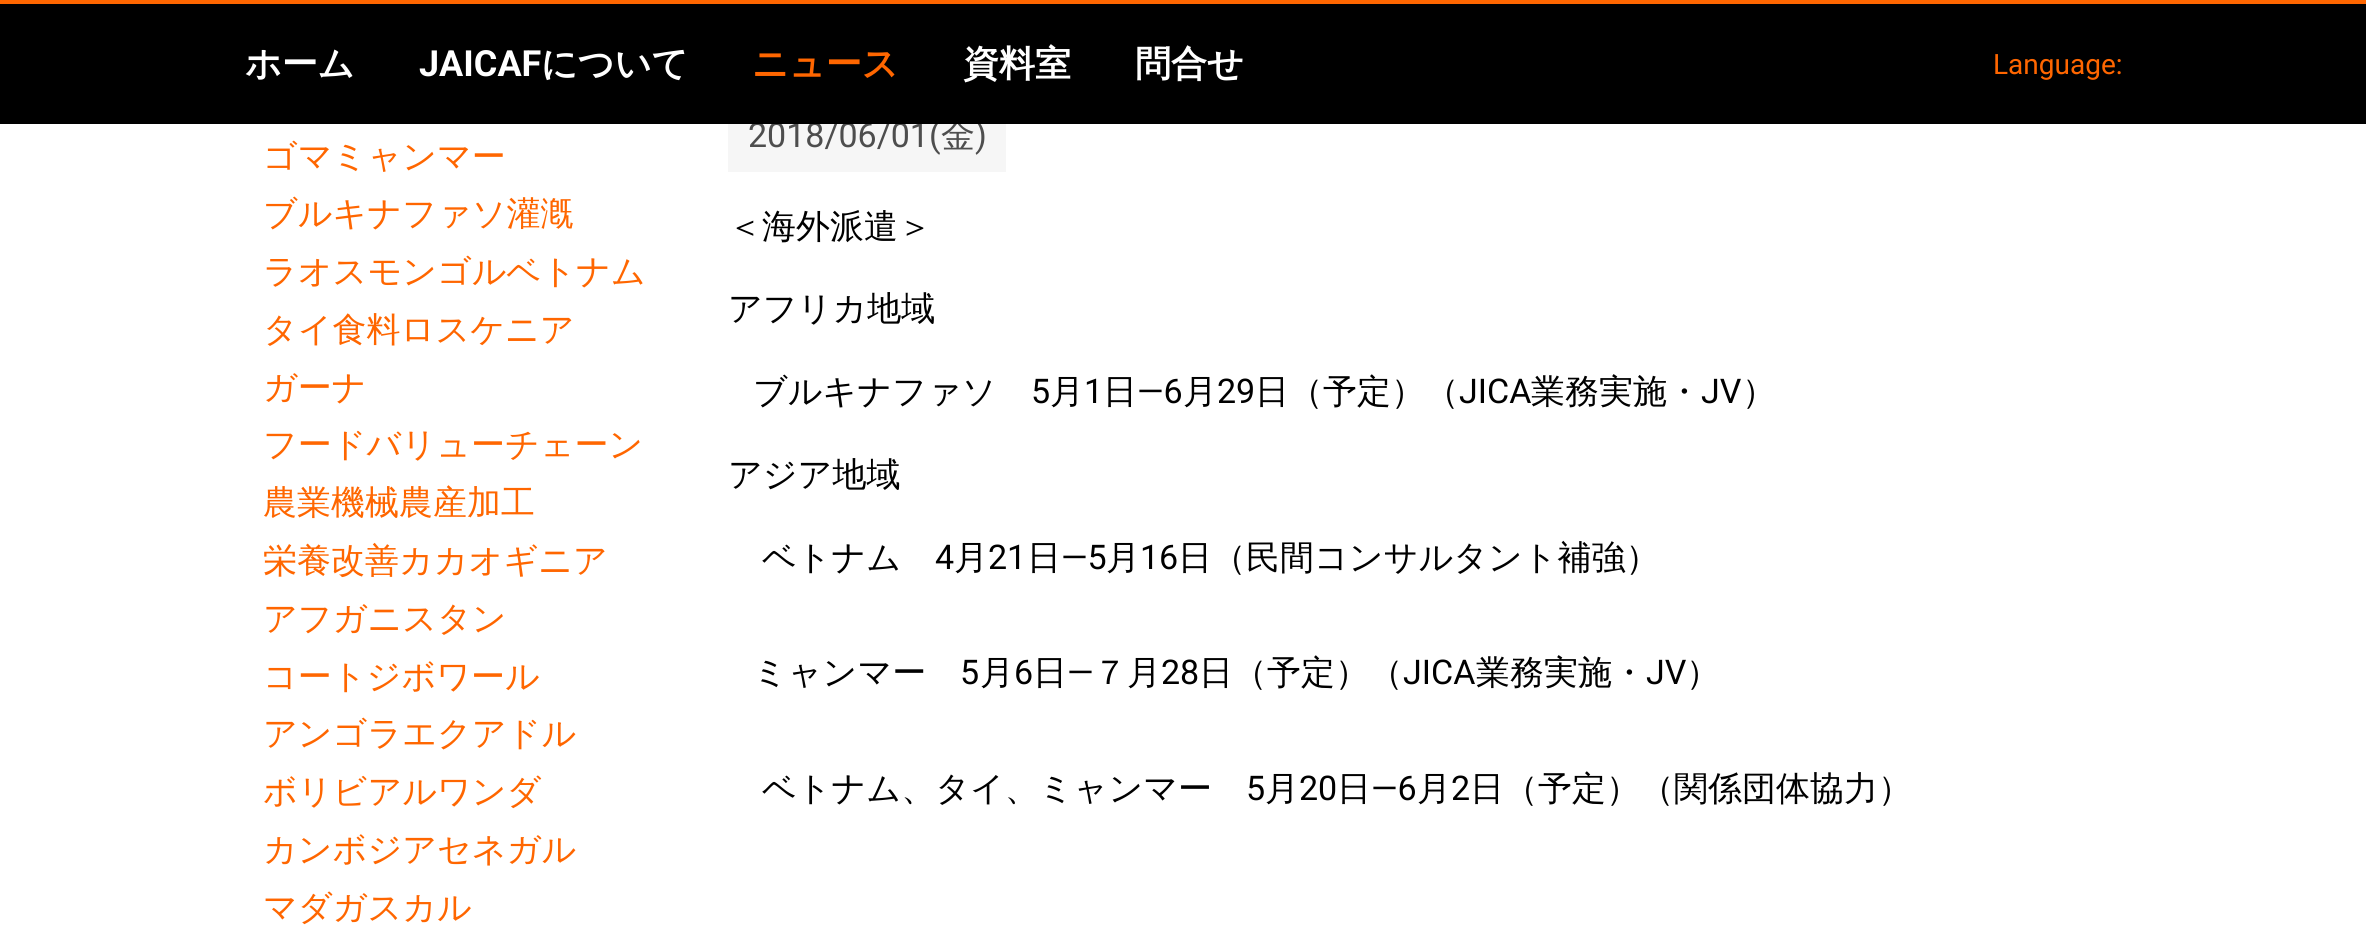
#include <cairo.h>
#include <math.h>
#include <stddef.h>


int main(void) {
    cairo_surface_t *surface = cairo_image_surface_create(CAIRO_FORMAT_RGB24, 2366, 939);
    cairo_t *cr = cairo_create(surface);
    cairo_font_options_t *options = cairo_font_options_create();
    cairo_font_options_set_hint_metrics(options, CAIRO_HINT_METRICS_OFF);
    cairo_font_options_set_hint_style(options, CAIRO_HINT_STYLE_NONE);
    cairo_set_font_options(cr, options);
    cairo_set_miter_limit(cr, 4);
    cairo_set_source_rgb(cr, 1, 1, 1);
    cairo_paint(cr);
    cairo_set_source_rgb(cr, 0.961, 0.961, 0.961);
    cairo_rectangle(cr, 728, 124, 278, 48);
    cairo_fill(cr);
    cairo_select_font_face(cr, "Roboto", CAIRO_FONT_SLANT_NORMAL, CAIRO_FONT_WEIGHT_NORMAL);
    cairo_set_font_size(cr, 34);
    cairo_set_source_rgb(cr, 0.306, 0.306, 0.306);
    cairo_move_to(cr, 748, 147);
    cairo_show_text(cr, "2018/06/01(");
    cairo_select_font_face(cr, "WenQuanYi Zen Hei Medium", CAIRO_FONT_SLANT_NORMAL, CAIRO_FONT_WEIGHT_NORMAL);
    cairo_move_to(cr, 941, 147);
    cairo_show_text(cr, "金");
    cairo_select_font_face(cr, "Roboto", CAIRO_FONT_SLANT_NORMAL, CAIRO_FONT_WEIGHT_NORMAL);
    cairo_move_to(cr, 975, 147);
    cairo_show_text(cr, ")");
    cairo_set_source_rgb(cr, 0, 0, 0);
    cairo_rectangle(cr, 0, 4, 2366, 120);
    cairo_fill(cr);
    cairo_set_source_rgb(cr, 1, 0.4, 0);
    cairo_rectangle(cr, 0, 0, 2366, 4);
    cairo_fill(cr);
    cairo_select_font_face(cr, "WenQuanYi Zen Hei", CAIRO_FONT_SLANT_NORMAL, CAIRO_FONT_WEIGHT_BOLD);
    cairo_set_font_size(cr, 36);
    cairo_set_source_rgb(cr, 1, 1, 1);
    cairo_move_to(cr, 245, 76);
    cairo_show_text(cr, "ホーム");
    cairo_select_font_face(cr, "Roboto", CAIRO_FONT_SLANT_NORMAL, CAIRO_FONT_WEIGHT_BOLD);
    cairo_move_to(cr, 419, 76);
    cairo_show_text(cr, "JAICAF");
    cairo_select_font_face(cr, "WenQuanYi Zen Hei", CAIRO_FONT_SLANT_NORMAL, CAIRO_FONT_WEIGHT_BOLD);
    cairo_move_to(cr, 541, 76);
    cairo_show_text(cr, "について");
    cairo_set_source_rgb(cr, 1, 0.4, 0);
    cairo_move_to(cr, 752, 76);
    cairo_show_text(cr, "ニュース");
    cairo_set_source_rgb(cr, 1, 1, 1);
    cairo_move_to(cr, 963, 76);
    cairo_show_text(cr, "資料室");
    cairo_move_to(cr, 1135, 76);
    cairo_show_text(cr, "問合せ");
    cairo_select_font_face(cr, "Roboto", CAIRO_FONT_SLANT_NORMAL, CAIRO_FONT_WEIGHT_NORMAL);
    cairo_set_font_size(cr, 28);
    cairo_set_source_rgb(cr, 1, 0.4, 0);
    cairo_move_to(cr, 1993, 74);
    cairo_show_text(cr, "Language:");
    cairo_select_font_face(cr, "WenQuanYi Zen Hei Medium", CAIRO_FONT_SLANT_NORMAL, CAIRO_FONT_WEIGHT_NORMAL);
    cairo_set_font_size(cr, 34);
    cairo_move_to(cr, 263, 168);
    cairo_show_text(cr, "ゴマミャンマー");
    cairo_move_to(cr, 263, 225);
    cairo_show_text(cr, "ブルキナファソ灌漑");
    cairo_move_to(cr, 263, 283);
    cairo_show_text(cr, "ラオスモンゴルベトナム");
    cairo_move_to(cr, 263, 341);
    cairo_show_text(cr, "タイ食料ロスケニア");
    cairo_move_to(cr, 263, 399);
    cairo_show_text(cr, "ガーナ");
    cairo_move_to(cr, 263, 456);
    cairo_show_text(cr, "フードバリューチェーン");
    cairo_move_to(cr, 263, 514);
    cairo_show_text(cr, "農業機械農産加工");
    cairo_move_to(cr, 263, 572);
    cairo_show_text(cr, "栄養改善カカオギニア");
    cairo_move_to(cr, 263, 630);
    cairo_show_text(cr, "アフガニスタン");
    cairo_move_to(cr, 263, 688);
    cairo_show_text(cr, "コートジボワール");
    cairo_move_to(cr, 263, 745);
    cairo_show_text(cr, "アンゴラエクアドル");
    cairo_move_to(cr, 263, 803);
    cairo_show_text(cr, "ボリビアルワンダ");
    cairo_move_to(cr, 263, 861);
    cairo_show_text(cr, "カンボジアセネガル");
    cairo_move_to(cr, 263, 919);
    cairo_show_text(cr, "マダガスカル");
    cairo_set_source_rgb(cr, 0, 0, 0);
    cairo_move_to(cr, 728, 238);
    cairo_show_text(cr, "＜海外派遣＞");
    cairo_move_to(cr, 728, 320);
    cairo_show_text(cr, "アフリカ地域");
    cairo_move_to(cr, 753, 403);
    cairo_show_text(cr, "ブルキナファソ");
    cairo_select_font_face(cr, "Roboto", CAIRO_FONT_SLANT_NORMAL, CAIRO_FONT_WEIGHT_NORMAL);
    cairo_move_to(cr, 1031, 403);
    cairo_show_text(cr, "5");
    cairo_select_font_face(cr, "WenQuanYi Zen Hei Medium", CAIRO_FONT_SLANT_NORMAL, CAIRO_FONT_WEIGHT_NORMAL);
    cairo_move_to(cr, 1050, 403);
    cairo_show_text(cr, "月");
    cairo_select_font_face(cr, "Roboto", CAIRO_FONT_SLANT_NORMAL, CAIRO_FONT_WEIGHT_NORMAL);
    cairo_move_to(cr, 1084, 403);
    cairo_show_text(cr, "1");
    cairo_select_font_face(cr, "WenQuanYi Zen Hei Medium", CAIRO_FONT_SLANT_NORMAL, CAIRO_FONT_WEIGHT_NORMAL);
    cairo_move_to(cr, 1103, 403);
    cairo_show_text(cr, "日");
    cairo_select_font_face(cr, "Roboto", CAIRO_FONT_SLANT_NORMAL, CAIRO_FONT_WEIGHT_NORMAL);
    cairo_move_to(cr, 1137, 403);
    cairo_show_text(cr, "―6");
    cairo_select_font_face(cr, "WenQuanYi Zen Hei Medium", CAIRO_FONT_SLANT_NORMAL, CAIRO_FONT_WEIGHT_NORMAL);
    cairo_move_to(cr, 1183, 403);
    cairo_show_text(cr, "月");
    cairo_select_font_face(cr, "Roboto", CAIRO_FONT_SLANT_NORMAL, CAIRO_FONT_WEIGHT_NORMAL);
    cairo_move_to(cr, 1217, 403);
    cairo_show_text(cr, "29");
    cairo_select_font_face(cr, "WenQuanYi Zen Hei Medium", CAIRO_FONT_SLANT_NORMAL, CAIRO_FONT_WEIGHT_NORMAL);
    cairo_move_to(cr, 1255, 403);
    cairo_show_text(cr, "日（予定）（");
    cairo_select_font_face(cr, "Roboto", CAIRO_FONT_SLANT_NORMAL, CAIRO_FONT_WEIGHT_NORMAL);
    cairo_move_to(cr, 1459, 403);
    cairo_show_text(cr, "JICA");
    cairo_select_font_face(cr, "WenQuanYi Zen Hei Medium", CAIRO_FONT_SLANT_NORMAL, CAIRO_FONT_WEIGHT_NORMAL);
    cairo_move_to(cr, 1531, 403);
    cairo_show_text(cr, "業務実施・");
    cairo_select_font_face(cr, "Roboto", CAIRO_FONT_SLANT_NORMAL, CAIRO_FONT_WEIGHT_NORMAL);
    cairo_move_to(cr, 1701, 403);
    cairo_show_text(cr, "JV");
    cairo_select_font_face(cr, "WenQuanYi Zen Hei Medium", CAIRO_FONT_SLANT_NORMAL, CAIRO_FONT_WEIGHT_NORMAL);
    cairo_move_to(cr, 1742, 403);
    cairo_show_text(cr, "）");
    cairo_move_to(cr, 728, 486);
    cairo_show_text(cr, "アジア地域");
    cairo_move_to(cr, 762, 569);
    cairo_show_text(cr, "ベトナム");
    cairo_select_font_face(cr, "Roboto", CAIRO_FONT_SLANT_NORMAL, CAIRO_FONT_WEIGHT_NORMAL);
    cairo_move_to(cr, 935, 569);
    cairo_show_text(cr, "4");
    cairo_select_font_face(cr, "WenQuanYi Zen Hei Medium", CAIRO_FONT_SLANT_NORMAL, CAIRO_FONT_WEIGHT_NORMAL);
    cairo_move_to(cr, 954, 569);
    cairo_show_text(cr, "月");
    cairo_select_font_face(cr, "Roboto", CAIRO_FONT_SLANT_NORMAL, CAIRO_FONT_WEIGHT_NORMAL);
    cairo_move_to(cr, 988, 569);
    cairo_show_text(cr, "21");
    cairo_select_font_face(cr, "WenQuanYi Zen Hei Medium", CAIRO_FONT_SLANT_NORMAL, CAIRO_FONT_WEIGHT_NORMAL);
    cairo_move_to(cr, 1027, 569);
    cairo_show_text(cr, "日");
    cairo_select_font_face(cr, "Roboto", CAIRO_FONT_SLANT_NORMAL, CAIRO_FONT_WEIGHT_NORMAL);
    cairo_move_to(cr, 1061, 569);
    cairo_show_text(cr, "―5");
    cairo_select_font_face(cr, "WenQuanYi Zen Hei Medium", CAIRO_FONT_SLANT_NORMAL, CAIRO_FONT_WEIGHT_NORMAL);
    cairo_move_to(cr, 1106, 569);
    cairo_show_text(cr, "月");
    cairo_select_font_face(cr, "Roboto", CAIRO_FONT_SLANT_NORMAL, CAIRO_FONT_WEIGHT_NORMAL);
    cairo_move_to(cr, 1140, 569);
    cairo_show_text(cr, "16");
    cairo_select_font_face(cr, "WenQuanYi Zen Hei Medium", CAIRO_FONT_SLANT_NORMAL, CAIRO_FONT_WEIGHT_NORMAL);
    cairo_move_to(cr, 1178, 569);
    cairo_show_text(cr, "日（民間コンサルタント補強）");
    cairo_move_to(cr, 753, 684);
    cairo_show_text(cr, "ミャンマー");
    cairo_select_font_face(cr, "Roboto", CAIRO_FONT_SLANT_NORMAL, CAIRO_FONT_WEIGHT_NORMAL);
    cairo_move_to(cr, 960, 684);
    cairo_show_text(cr, "5");
    cairo_select_font_face(cr, "WenQuanYi Zen Hei Medium", CAIRO_FONT_SLANT_NORMAL, CAIRO_FONT_WEIGHT_NORMAL);
    cairo_move_to(cr, 980, 684);
    cairo_show_text(cr, "月");
    cairo_select_font_face(cr, "Roboto", CAIRO_FONT_SLANT_NORMAL, CAIRO_FONT_WEIGHT_NORMAL);
    cairo_move_to(cr, 1014, 684);
    cairo_show_text(cr, "6");
    cairo_select_font_face(cr, "WenQuanYi Zen Hei Medium", CAIRO_FONT_SLANT_NORMAL, CAIRO_FONT_WEIGHT_NORMAL);
    cairo_move_to(cr, 1033, 684);
    cairo_show_text(cr, "日");
    cairo_select_font_face(cr, "Roboto", CAIRO_FONT_SLANT_NORMAL, CAIRO_FONT_WEIGHT_NORMAL);
    cairo_move_to(cr, 1067, 684);
    cairo_show_text(cr, "―");
    cairo_select_font_face(cr, "WenQuanYi Zen Hei Medium", CAIRO_FONT_SLANT_NORMAL, CAIRO_FONT_WEIGHT_NORMAL);
    cairo_move_to(cr, 1093, 684);
    cairo_show_text(cr, "７月");
    cairo_select_font_face(cr, "Roboto", CAIRO_FONT_SLANT_NORMAL, CAIRO_FONT_WEIGHT_NORMAL);
    cairo_move_to(cr, 1161, 684);
    cairo_show_text(cr, "28");
    cairo_select_font_face(cr, "WenQuanYi Zen Hei Medium", CAIRO_FONT_SLANT_NORMAL, CAIRO_FONT_WEIGHT_NORMAL);
    cairo_move_to(cr, 1199, 684);
    cairo_show_text(cr, "日（予定）（");
    cairo_select_font_face(cr, "Roboto", CAIRO_FONT_SLANT_NORMAL, CAIRO_FONT_WEIGHT_NORMAL);
    cairo_move_to(cr, 1403, 684);
    cairo_show_text(cr, "JICA");
    cairo_select_font_face(cr, "WenQuanYi Zen Hei Medium", CAIRO_FONT_SLANT_NORMAL, CAIRO_FONT_WEIGHT_NORMAL);
    cairo_move_to(cr, 1476, 684);
    cairo_show_text(cr, "業務実施・");
    cairo_select_font_face(cr, "Roboto", CAIRO_FONT_SLANT_NORMAL, CAIRO_FONT_WEIGHT_NORMAL);
    cairo_move_to(cr, 1646, 684);
    cairo_show_text(cr, "JV");
    cairo_select_font_face(cr, "WenQuanYi Zen Hei Medium", CAIRO_FONT_SLANT_NORMAL, CAIRO_FONT_WEIGHT_NORMAL);
    cairo_move_to(cr, 1686, 684);
    cairo_show_text(cr, "）");
    cairo_move_to(cr, 762, 800);
    cairo_show_text(cr, "ベトナム、タイ、ミャンマー");
    cairo_select_font_face(cr, "Roboto", CAIRO_FONT_SLANT_NORMAL, CAIRO_FONT_WEIGHT_NORMAL);
    cairo_move_to(cr, 1246, 800);
    cairo_show_text(cr, "5");
    cairo_select_font_face(cr, "WenQuanYi Zen Hei Medium", CAIRO_FONT_SLANT_NORMAL, CAIRO_FONT_WEIGHT_NORMAL);
    cairo_move_to(cr, 1265, 800);
    cairo_show_text(cr, "月");
    cairo_select_font_face(cr, "Roboto", CAIRO_FONT_SLANT_NORMAL, CAIRO_FONT_WEIGHT_NORMAL);
    cairo_move_to(cr, 1299, 800);
    cairo_show_text(cr, "20");
    cairo_select_font_face(cr, "WenQuanYi Zen Hei Medium", CAIRO_FONT_SLANT_NORMAL, CAIRO_FONT_WEIGHT_NORMAL);
    cairo_move_to(cr, 1337, 800);
    cairo_show_text(cr, "日");
    cairo_select_font_face(cr, "Roboto", CAIRO_FONT_SLANT_NORMAL, CAIRO_FONT_WEIGHT_NORMAL);
    cairo_move_to(cr, 1371, 800);
    cairo_show_text(cr, "―6");
    cairo_select_font_face(cr, "WenQuanYi Zen Hei Medium", CAIRO_FONT_SLANT_NORMAL, CAIRO_FONT_WEIGHT_NORMAL);
    cairo_move_to(cr, 1417, 800);
    cairo_show_text(cr, "月");
    cairo_select_font_face(cr, "Roboto", CAIRO_FONT_SLANT_NORMAL, CAIRO_FONT_WEIGHT_NORMAL);
    cairo_move_to(cr, 1451, 800);
    cairo_show_text(cr, "2");
    cairo_select_font_face(cr, "WenQuanYi Zen Hei Medium", CAIRO_FONT_SLANT_NORMAL, CAIRO_FONT_WEIGHT_NORMAL);
    cairo_move_to(cr, 1470, 800);
    cairo_show_text(cr, "日（予定）（関係団体協力）");
    cairo_surface_write_to_png(surface, "page.png");
    cairo_font_options_destroy(options);
    cairo_destroy(cr);
    cairo_surface_destroy(surface);
    return 0;
}
